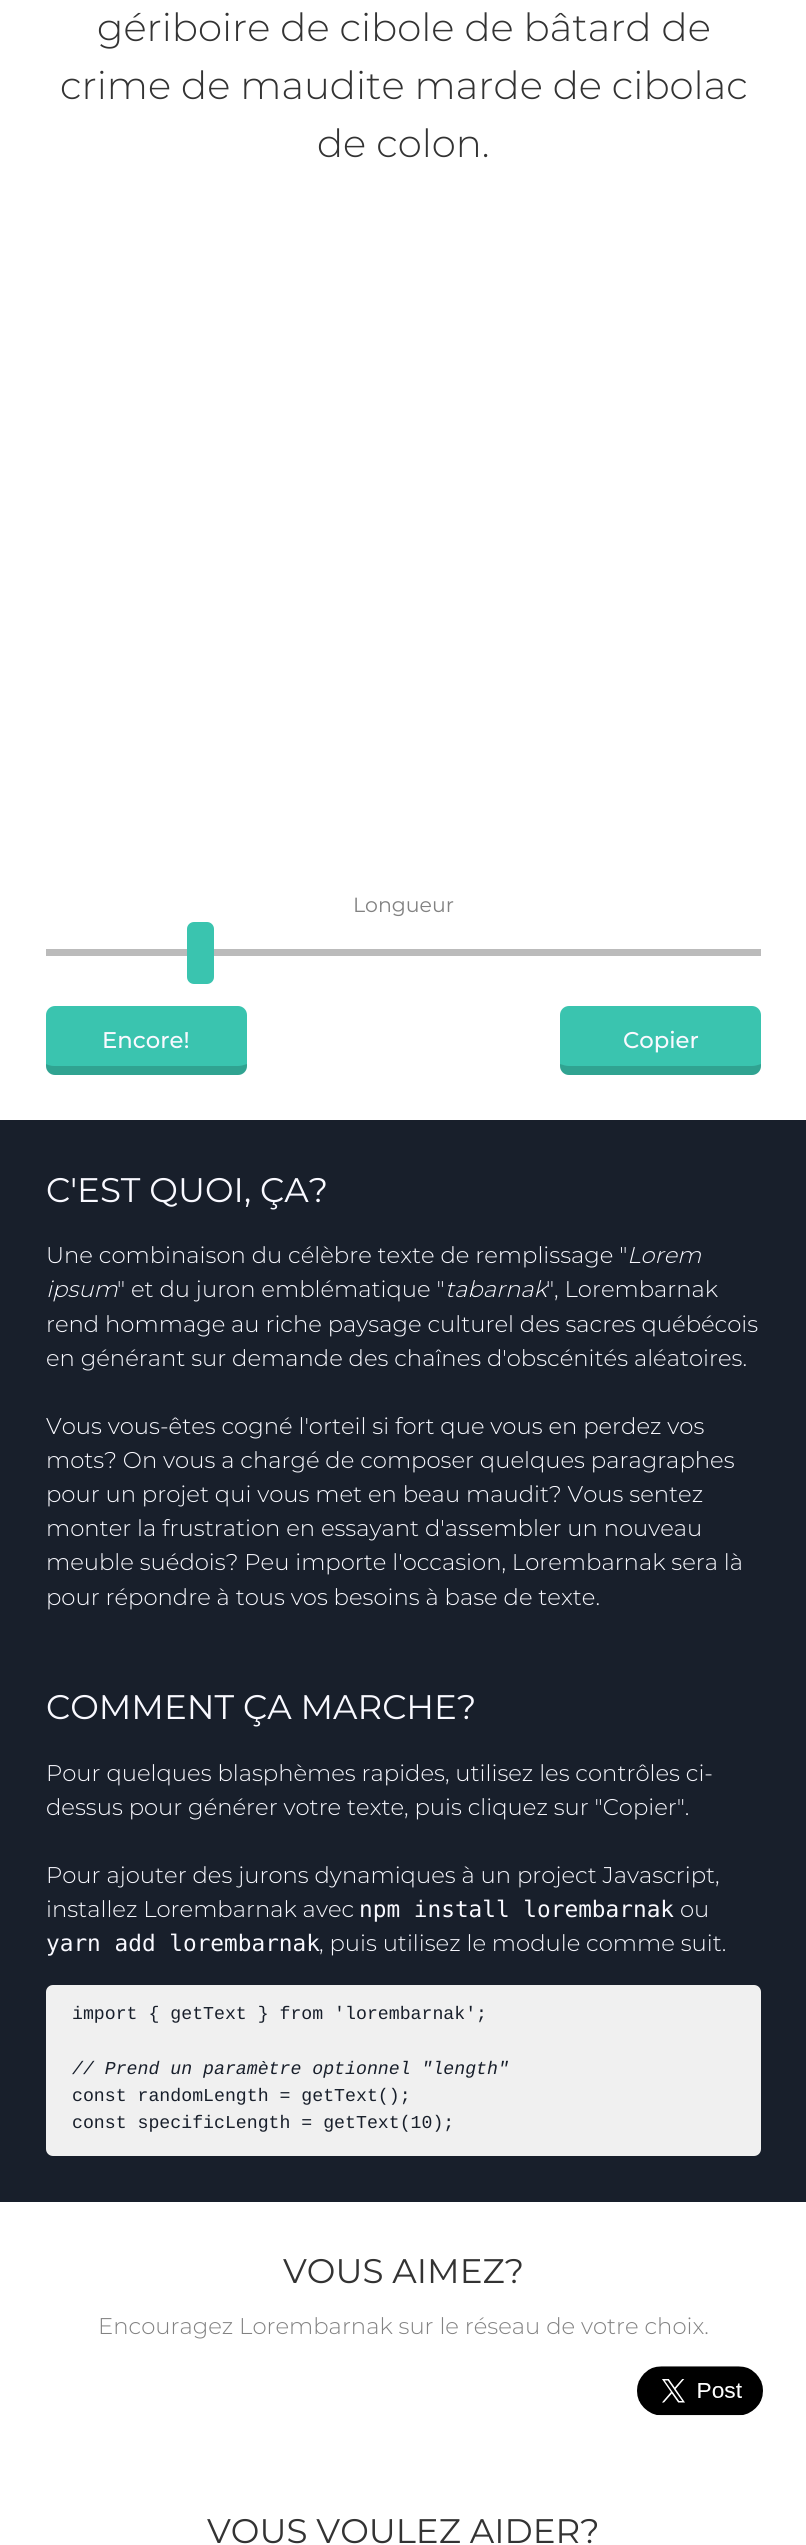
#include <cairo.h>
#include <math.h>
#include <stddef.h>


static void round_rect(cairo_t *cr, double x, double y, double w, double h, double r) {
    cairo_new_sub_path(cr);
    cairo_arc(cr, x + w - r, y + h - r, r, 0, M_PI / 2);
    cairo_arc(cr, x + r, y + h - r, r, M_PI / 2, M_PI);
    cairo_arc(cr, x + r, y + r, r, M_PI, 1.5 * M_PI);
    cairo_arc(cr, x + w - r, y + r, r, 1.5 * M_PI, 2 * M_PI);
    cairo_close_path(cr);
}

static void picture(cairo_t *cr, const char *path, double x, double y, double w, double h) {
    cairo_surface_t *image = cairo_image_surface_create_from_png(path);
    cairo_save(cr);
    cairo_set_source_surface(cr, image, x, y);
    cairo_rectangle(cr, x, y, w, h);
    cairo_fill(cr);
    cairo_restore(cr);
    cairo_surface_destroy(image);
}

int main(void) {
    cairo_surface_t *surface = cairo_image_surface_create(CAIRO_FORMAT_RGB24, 806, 2545);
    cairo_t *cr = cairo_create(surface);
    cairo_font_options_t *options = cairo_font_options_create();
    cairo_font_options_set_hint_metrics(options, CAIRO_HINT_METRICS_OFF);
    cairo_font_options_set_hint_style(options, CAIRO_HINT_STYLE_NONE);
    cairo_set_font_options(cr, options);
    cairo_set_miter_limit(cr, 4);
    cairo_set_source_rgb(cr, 1, 1, 1);
    cairo_paint(cr);
    cairo_select_font_face(cr, "Montserrat Light", CAIRO_FONT_SLANT_NORMAL, CAIRO_FONT_WEIGHT_NORMAL);
    cairo_set_font_size(cr, 38.7);
    cairo_set_source_rgb(cr, 0.2, 0.2, 0.2);
    cairo_move_to(cr, 97, 41);
    cairo_show_text(cr, "gériboire de cibole de bâtard de");
    cairo_move_to(cr, 60, 99);
    cairo_show_text(cr, "crime de maudite marde de cibolac");
    cairo_move_to(cr, 317, 157);
    cairo_show_text(cr, "de colon.");
    cairo_select_font_face(cr, "Montserrat", CAIRO_FONT_SLANT_NORMAL, CAIRO_FONT_WEIGHT_NORMAL);
    cairo_set_font_size(cr, 20.5);
    cairo_set_source_rgb(cr, 0.51, 0.51, 0.51);
    cairo_move_to(cr, 353, 912);
    cairo_show_text(cr, "Longueur");
    cairo_set_source_rgb(cr, 0.733, 0.733, 0.733);
    cairo_rectangle(cr, 46, 949, 715, 7);
    cairo_fill(cr);
    cairo_set_source_rgb(cr, 0.227, 0.769, 0.686);
    round_rect(cr, 187, 922, 27, 62, 7);
    cairo_fill(cr);
    round_rect(cr, 46, 1006, 201, 69, 9);
    cairo_fill(cr);
    cairo_set_source_rgba(cr, 0, 0, 0, 0.17);
    cairo_new_path(cr);
    cairo_move_to(cr, 46, 1064);
    cairo_line_to(cr, 46, 1066);
    cairo_curve_to(cr, 46, 1071, 50, 1075, 55, 1075);
    cairo_line_to(cr, 238, 1075);
    cairo_curve_to(cr, 243, 1075, 247, 1071, 247, 1066);
    cairo_line_to(cr, 247, 1064);
    cairo_curve_to(cr, 244, 1065, 241, 1066, 238, 1066);
    cairo_line_to(cr, 54, 1066);
    cairo_curve_to(cr, 51, 1066, 48, 1065, 46, 1064);
    cairo_close_path(cr);
    cairo_fill(cr);
    cairo_select_font_face(cr, "Montserrat Medium", CAIRO_FONT_SLANT_NORMAL, CAIRO_FONT_WEIGHT_NORMAL);
    cairo_set_font_size(cr, 22.75);
    cairo_set_source_rgb(cr, 0.973, 0.973, 1);
    cairo_move_to(cr, 102, 1048);
    cairo_show_text(cr, "Encore!");
    cairo_set_source_rgb(cr, 0.227, 0.769, 0.686);
    round_rect(cr, 560, 1006, 201, 69, 9);
    cairo_fill(cr);
    cairo_set_source_rgba(cr, 0, 0, 0, 0.17);
    cairo_new_path(cr);
    cairo_move_to(cr, 560, 1064);
    cairo_line_to(cr, 560, 1066);
    cairo_curve_to(cr, 560, 1071, 564, 1075, 569, 1075);
    cairo_line_to(cr, 752, 1075);
    cairo_curve_to(cr, 757, 1075, 761, 1071, 761, 1066);
    cairo_line_to(cr, 761, 1064);
    cairo_curve_to(cr, 758, 1065, 755, 1066, 752, 1066);
    cairo_line_to(cr, 569, 1066);
    cairo_curve_to(cr, 566, 1066, 563, 1065, 560, 1064);
    cairo_close_path(cr);
    cairo_fill(cr);
    cairo_set_source_rgb(cr, 0.973, 0.973, 1);
    cairo_move_to(cr, 623, 1048);
    cairo_show_text(cr, "Copier");
    cairo_set_source_rgb(cr, 0.094, 0.122, 0.169);
    cairo_rectangle(cr, 0, 1120, 806, 1082);
    cairo_fill(cr);
    cairo_select_font_face(cr, "Montserrat", CAIRO_FONT_SLANT_NORMAL, CAIRO_FONT_WEIGHT_NORMAL);
    cairo_set_font_size(cr, 34.1);
    cairo_set_source_rgb(cr, 0.973, 0.973, 1);
    cairo_move_to(cr, 46, 1202);
    cairo_show_text(cr, "C'EST QUOI, ÇA?");
    cairo_select_font_face(cr, "Montserrat Light", CAIRO_FONT_SLANT_NORMAL, CAIRO_FONT_WEIGHT_NORMAL);
    cairo_set_font_size(cr, 22.75);
    cairo_move_to(cr, 46, 1263);
    cairo_show_text(cr, "Une combinaison du célèbre texte de remplissage \"");
    cairo_select_font_face(cr, "Montserrat Light", CAIRO_FONT_SLANT_ITALIC, CAIRO_FONT_WEIGHT_NORMAL);
    cairo_move_to(cr, 627, 1263);
    cairo_show_text(cr, "Lorem");
    cairo_move_to(cr, 46, 1297);
    cairo_show_text(cr, "ipsum");
    cairo_select_font_face(cr, "Montserrat Light", CAIRO_FONT_SLANT_NORMAL, CAIRO_FONT_WEIGHT_NORMAL);
    cairo_move_to(cr, 117, 1297);
    cairo_show_text(cr, "\" et du juron emblématique \"");
    cairo_select_font_face(cr, "Montserrat Light", CAIRO_FONT_SLANT_ITALIC, CAIRO_FONT_WEIGHT_NORMAL);
    cairo_move_to(cr, 445, 1297);
    cairo_show_text(cr, "tabarnak");
    cairo_select_font_face(cr, "Montserrat Light", CAIRO_FONT_SLANT_NORMAL, CAIRO_FONT_WEIGHT_NORMAL);
    cairo_move_to(cr, 546, 1297);
    cairo_show_text(cr, "\", Lorembarnak");
    cairo_move_to(cr, 46, 1332);
    cairo_show_text(cr, "rend hommage au riche paysage culturel des sacres québécois");
    cairo_move_to(cr, 46, 1366);
    cairo_show_text(cr, "en générant sur demande des chaînes d'obscénités aléatoires.");
    cairo_move_to(cr, 46, 1434);
    cairo_show_text(cr, "Vous vous-êtes cogné l'orteil si fort que vous en perdez vos");
    cairo_move_to(cr, 46, 1468);
    cairo_show_text(cr, "mots? On vous a chargé de composer quelques paragraphes");
    cairo_move_to(cr, 46, 1502);
    cairo_show_text(cr, "pour un projet qui vous met en beau maudit? Vous sentez");
    cairo_move_to(cr, 46, 1536);
    cairo_show_text(cr, "monter la frustration en essayant d'assembler un nouveau");
    cairo_move_to(cr, 46, 1570);
    cairo_show_text(cr, "meuble suédois? Peu importe l'occasion, Lorembarnak sera là");
    cairo_move_to(cr, 46, 1605);
    cairo_show_text(cr, "pour répondre à tous vos besoins à base de texte.");
    cairo_select_font_face(cr, "Montserrat", CAIRO_FONT_SLANT_NORMAL, CAIRO_FONT_WEIGHT_NORMAL);
    cairo_set_font_size(cr, 34.1);
    cairo_move_to(cr, 46, 1719);
    cairo_show_text(cr, "COMMENT ÇA MARCHE?");
    cairo_select_font_face(cr, "Montserrat Light", CAIRO_FONT_SLANT_NORMAL, CAIRO_FONT_WEIGHT_NORMAL);
    cairo_set_font_size(cr, 22.75);
    cairo_move_to(cr, 46, 1781);
    cairo_show_text(cr, "Pour quelques blasphèmes rapides, utilisez les contrôles ci-");
    cairo_move_to(cr, 46, 1815);
    cairo_show_text(cr, "dessus pour générer votre texte, puis cliquez sur \"Copier\".");
    cairo_move_to(cr, 46, 1883);
    cairo_show_text(cr, "Pour ajouter des jurons dynamiques à un project Javascript,");
    cairo_move_to(cr, 46, 1917);
    cairo_show_text(cr, "installez Lorembarnak avec");
    cairo_select_font_face(cr, "DejaVu Sans Mono", CAIRO_FONT_SLANT_NORMAL, CAIRO_FONT_WEIGHT_NORMAL);
    cairo_move_to(cr, 359, 1917);
    cairo_show_text(cr, "npm install lorembarnak");
    cairo_select_font_face(cr, "Montserrat Light", CAIRO_FONT_SLANT_NORMAL, CAIRO_FONT_WEIGHT_NORMAL);
    cairo_move_to(cr, 680, 1917);
    cairo_show_text(cr, "ou");
    cairo_select_font_face(cr, "DejaVu Sans Mono", CAIRO_FONT_SLANT_NORMAL, CAIRO_FONT_WEIGHT_NORMAL);
    cairo_move_to(cr, 46, 1951);
    cairo_show_text(cr, "yarn add lorembarnak");
    cairo_select_font_face(cr, "Montserrat Light", CAIRO_FONT_SLANT_NORMAL, CAIRO_FONT_WEIGHT_NORMAL);
    cairo_move_to(cr, 319, 1951);
    cairo_show_text(cr, ", puis utilisez le module comme suit.");
    cairo_set_source_rgb(cr, 0.941, 0.941, 0.941);
    round_rect(cr, 46, 1985, 715, 171, 7);
    cairo_fill(cr);
    cairo_select_font_face(cr, "Liberation Mono", CAIRO_FONT_SLANT_NORMAL, CAIRO_FONT_WEIGHT_NORMAL);
    cairo_set_font_size(cr, 18.2);
    cairo_set_source_rgb(cr, 0.094, 0.122, 0.169);
    cairo_move_to(cr, 72, 2019);
    cairo_show_text(cr, "import { getText } from 'lorembarnak';");
    cairo_select_font_face(cr, "Liberation Mono", CAIRO_FONT_SLANT_ITALIC, CAIRO_FONT_WEIGHT_NORMAL);
    cairo_move_to(cr, 72, 2074);
    cairo_show_text(cr, "// Prend un paramètre optionnel \"length\"");
    cairo_select_font_face(cr, "Liberation Mono", CAIRO_FONT_SLANT_NORMAL, CAIRO_FONT_WEIGHT_NORMAL);
    cairo_move_to(cr, 72, 2101);
    cairo_show_text(cr, "const randomLength = getText();");
    cairo_move_to(cr, 72, 2128);
    cairo_show_text(cr, "const specificLength = getText(10);");
    cairo_select_font_face(cr, "Montserrat", CAIRO_FONT_SLANT_NORMAL, CAIRO_FONT_WEIGHT_NORMAL);
    cairo_set_font_size(cr, 34.1);
    cairo_set_source_rgb(cr, 0.2, 0.2, 0.2);
    cairo_move_to(cr, 283, 2283);
    cairo_show_text(cr, "VOUS AIMEZ?");
    cairo_select_font_face(cr, "Montserrat Light", CAIRO_FONT_SLANT_NORMAL, CAIRO_FONT_WEIGHT_NORMAL);
    cairo_set_font_size(cr, 22.75);
    cairo_set_source_rgb(cr, 0.51, 0.51, 0.51);
    cairo_move_to(cr, 98, 2334);
    cairo_show_text(cr, "Encouragez Lorembarnak sur le réseau de votre choix.");
    picture(cr, "img1.png", 637, 2366, 126, 50);
    cairo_select_font_face(cr, "Montserrat", CAIRO_FONT_SLANT_NORMAL, CAIRO_FONT_WEIGHT_NORMAL);
    cairo_set_font_size(cr, 34.1);
    cairo_set_source_rgb(cr, 0.2, 0.2, 0.2);
    cairo_move_to(cr, 207, 2543);
    cairo_show_text(cr, "VOUS VOULEZ AIDER?");
    cairo_surface_write_to_png(surface, "page.png");
    cairo_font_options_destroy(options);
    cairo_destroy(cr);
    cairo_surface_destroy(surface);
    return 0;
}
